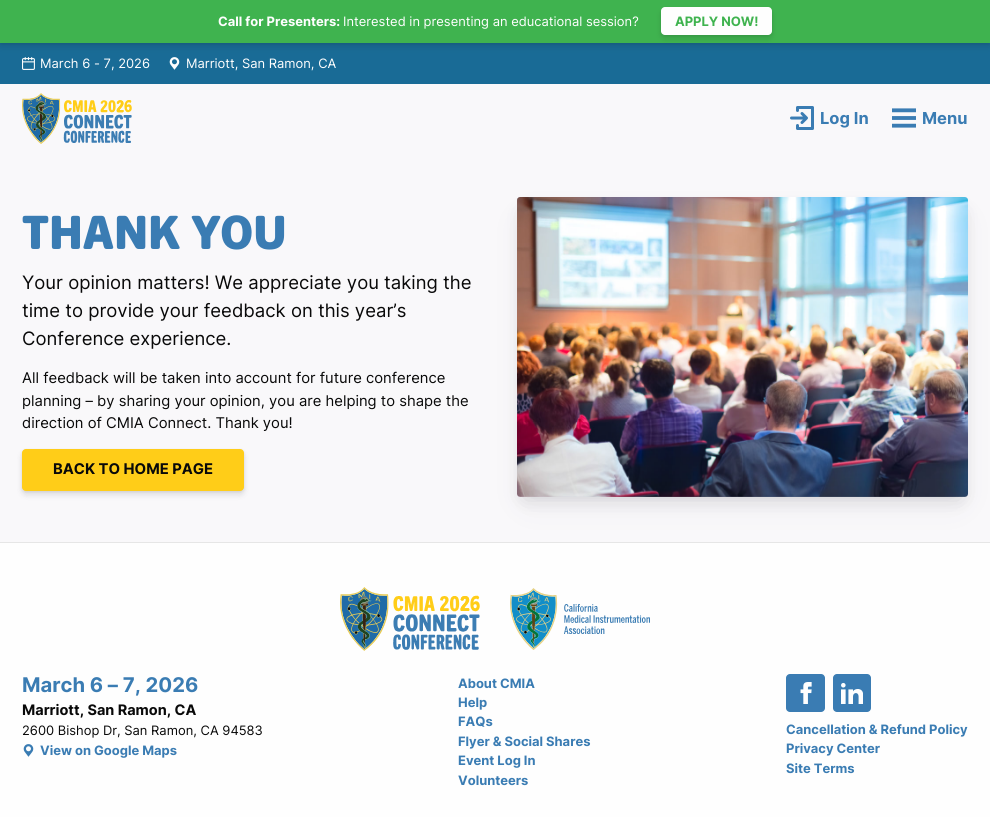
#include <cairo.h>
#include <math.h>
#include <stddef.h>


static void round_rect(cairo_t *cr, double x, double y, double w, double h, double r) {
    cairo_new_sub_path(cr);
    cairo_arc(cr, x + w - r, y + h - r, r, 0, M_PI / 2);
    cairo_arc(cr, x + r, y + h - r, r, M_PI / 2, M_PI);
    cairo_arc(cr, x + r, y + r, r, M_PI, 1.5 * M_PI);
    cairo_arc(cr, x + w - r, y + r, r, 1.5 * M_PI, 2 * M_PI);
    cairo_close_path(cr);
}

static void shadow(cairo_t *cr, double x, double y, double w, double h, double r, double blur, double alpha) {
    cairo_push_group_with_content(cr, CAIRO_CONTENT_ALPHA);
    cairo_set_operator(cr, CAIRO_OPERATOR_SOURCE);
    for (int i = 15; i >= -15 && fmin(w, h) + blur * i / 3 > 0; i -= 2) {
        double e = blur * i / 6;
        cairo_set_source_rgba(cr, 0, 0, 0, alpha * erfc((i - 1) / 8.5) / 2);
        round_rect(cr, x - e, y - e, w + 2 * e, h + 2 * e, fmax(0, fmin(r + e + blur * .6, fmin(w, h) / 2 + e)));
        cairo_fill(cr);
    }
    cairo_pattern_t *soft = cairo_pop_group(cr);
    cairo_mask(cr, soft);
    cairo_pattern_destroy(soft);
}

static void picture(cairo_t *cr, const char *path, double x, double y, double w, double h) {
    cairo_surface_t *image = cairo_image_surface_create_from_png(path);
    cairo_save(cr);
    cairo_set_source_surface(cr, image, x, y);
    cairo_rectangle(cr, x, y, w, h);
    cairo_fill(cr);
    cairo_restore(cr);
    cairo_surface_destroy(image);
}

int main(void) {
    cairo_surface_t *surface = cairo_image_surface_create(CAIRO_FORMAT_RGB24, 990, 817);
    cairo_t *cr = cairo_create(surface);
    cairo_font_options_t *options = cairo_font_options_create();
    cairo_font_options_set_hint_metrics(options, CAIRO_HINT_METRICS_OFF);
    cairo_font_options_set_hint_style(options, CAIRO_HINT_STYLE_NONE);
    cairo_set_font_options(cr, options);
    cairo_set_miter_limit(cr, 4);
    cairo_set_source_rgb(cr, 0.973, 0.969, 0.98);
    cairo_paint(cr);
    cairo_set_source_rgb(cr, 0.098, 0.42, 0.588);
    cairo_rectangle(cr, 0, 43, 990, 41);
    cairo_fill(cr);
    cairo_set_source_rgb(cr, 0.039, 0.039, 0.039);
    shadow(cr, 0, 1, 990, 43, 0, 1.5, 0.08);
    shadow(cr, 0, 4, 990, 43, 0, 3, 0.11);
    cairo_set_source_rgb(cr, 0.247, 0.702, 0.31);
    cairo_rectangle(cr, 0, 0, 990, 43);
    cairo_fill(cr);
    cairo_select_font_face(cr, "Inter", CAIRO_FONT_SLANT_NORMAL, CAIRO_FONT_WEIGHT_BOLD);
    cairo_set_font_size(cr, 12.95);
    cairo_set_source_rgb(cr, 0.996, 0.996, 0.996);
    cairo_move_to(cr, 218, 26);
    cairo_show_text(cr, "Call for Presenters:");
    cairo_select_font_face(cr, "Inter", CAIRO_FONT_SLANT_NORMAL, CAIRO_FONT_WEIGHT_NORMAL);
    cairo_move_to(cr, 343, 26);
    cairo_show_text(cr, "Interested in presenting an educational session?");
    cairo_set_source_rgb(cr, 0.039, 0.039, 0.039);
    shadow(cr, 661, 8, 111, 28, 4, 1.5, 0.08);
    shadow(cr, 661, 11, 111, 28, 4, 3, 0.11);
    cairo_set_source_rgb(cr, 0.996, 0.996, 0.996);
    round_rect(cr, 661, 7, 111, 28, 4);
    cairo_fill(cr);
    cairo_select_font_face(cr, "Inter", CAIRO_FONT_SLANT_NORMAL, CAIRO_FONT_WEIGHT_BOLD);
    cairo_set_source_rgb(cr, 0.247, 0.702, 0.31);
    cairo_move_to(cr, 675, 26);
    cairo_show_text(cr, "APPLY NOW!");
    picture(cr, "img1.png", 22, 57, 13, 13);
    cairo_select_font_face(cr, "Inter", CAIRO_FONT_SLANT_NORMAL, CAIRO_FONT_WEIGHT_NORMAL);
    cairo_set_source_rgb(cr, 0.996, 0.996, 0.996);
    cairo_move_to(cr, 40, 68);
    cairo_show_text(cr, "March 6 - 7, 2026");
    picture(cr, "img2.png", 169, 57, 11, 13);
    cairo_move_to(cr, 186, 68);
    cairo_show_text(cr, "Marriott, San Ramon, CA");
    picture(cr, "img3.png", 22, 93, 110, 51);
    picture(cr, "img4.png", 790, 106, 24, 24);
    cairo_select_font_face(cr, "Inter", CAIRO_FONT_SLANT_NORMAL, CAIRO_FONT_WEIGHT_BOLD);
    cairo_set_font_size(cr, 16.5);
    cairo_set_source_rgb(cr, 0.227, 0.486, 0.702);
    cairo_move_to(cr, 820, 124);
    cairo_show_text(cr, "Log In");
    picture(cr, "img5.png", 892, 108, 24, 20);
    cairo_move_to(cr, 922, 124);
    cairo_show_text(cr, "Menu");
    cairo_select_font_face(cr, "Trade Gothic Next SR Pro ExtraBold", CAIRO_FONT_SLANT_NORMAL, CAIRO_FONT_WEIGHT_NORMAL);
    cairo_set_font_size(cr, 46.25);
    cairo_move_to(cr, 22, 249);
    cairo_show_text(cr, "THANK YOU");
    cairo_select_font_face(cr, "Inter", CAIRO_FONT_SLANT_NORMAL, CAIRO_FONT_WEIGHT_NORMAL);
    cairo_set_font_size(cr, 18.5);
    cairo_set_source_rgb(cr, 0.039, 0.039, 0.039);
    cairo_move_to(cr, 22, 289);
    cairo_show_text(cr, "Your opinion matters! We appreciate you taking the");
    cairo_move_to(cr, 22, 317);
    cairo_show_text(cr, "time to provide your feedback on this year’s");
    cairo_move_to(cr, 22, 345);
    cairo_show_text(cr, "Conference experience.");
    cairo_set_font_size(cr, 14.8);
    cairo_move_to(cr, 22, 383);
    cairo_show_text(cr, "All feedback will be taken into account for future conference");
    cairo_move_to(cr, 22, 406);
    cairo_show_text(cr, "planning – by sharing your opinion, you are helping to shape the");
    cairo_move_to(cr, 22, 428);
    cairo_show_text(cr, "direction of CMIA Connect. Thank you!");
    cairo_set_source_rgb(cr, 0.039, 0.039, 0.039);
    shadow(cr, 22, 450, 222, 42, 4, 1.5, 0.08);
    shadow(cr, 22, 453, 222, 42, 4, 3, 0.11);
    cairo_set_source_rgb(cr, 1, 0.804, 0.094);
    round_rect(cr, 22, 449, 222, 42, 4);
    cairo_fill(cr);
    cairo_select_font_face(cr, "Inter", CAIRO_FONT_SLANT_NORMAL, CAIRO_FONT_WEIGHT_BOLD);
    cairo_set_source_rgb(cr, 0.039, 0.039, 0.039);
    cairo_move_to(cr, 53, 474);
    cairo_show_text(cr, "BACK TO HOME PAGE");
    cairo_set_source_rgb(cr, 0.039, 0.039, 0.039);
    shadow(cr, 525, 213, 435, 284, 0, 10, 0.15);
    cairo_set_source_rgb(cr, 0.902, 0.902, 0.902);
    cairo_rectangle(cr, 0, 542, 990, 1);
    cairo_fill(cr);
    cairo_set_source_rgb(cr, 0.996, 0.996, 0.996);
    cairo_rectangle(cr, 0, 543, 990, 274);
    cairo_fill(cr);
    cairo_set_source_rgb(cr, 0.196, 0.196, 0.365);
    shadow(cr, 529, 223, 427, 275, 0, 17.5, 0.1);
    picture(cr, "img6.png", 517, 197, 451, 300);
    picture(cr, "img7.png", 517, 197, 451, 300);
    picture(cr, "img8.png", 340, 587, 140, 64);
    picture(cr, "img9.png", 510, 588, 140, 62);
    cairo_set_font_size(cr, 20.25);
    cairo_set_source_rgb(cr, 0.227, 0.486, 0.702);
    cairo_move_to(cr, 22, 692);
    cairo_show_text(cr, "March 6 – 7, 2026");
    cairo_set_font_size(cr, 14.5);
    cairo_set_source_rgb(cr, 0.039, 0.039, 0.039);
    cairo_move_to(cr, 22, 715);
    cairo_show_text(cr, "Marriott, San Ramon, CA");
    cairo_select_font_face(cr, "Inter", CAIRO_FONT_SLANT_NORMAL, CAIRO_FONT_WEIGHT_NORMAL);
    cairo_set_font_size(cr, 12.95);
    cairo_move_to(cr, 22, 735);
    cairo_show_text(cr, "2600 Bishop Dr, San Ramon, CA 94583");
    picture(cr, "img10.png", 23, 744, 11, 13);
    cairo_select_font_face(cr, "Inter", CAIRO_FONT_SLANT_NORMAL, CAIRO_FONT_WEIGHT_BOLD);
    cairo_set_source_rgb(cr, 0.227, 0.486, 0.702);
    cairo_move_to(cr, 40, 755);
    cairo_show_text(cr, "View on Google Maps");
    cairo_move_to(cr, 458, 688);
    cairo_show_text(cr, "About CMIA");
    cairo_move_to(cr, 458, 707);
    cairo_show_text(cr, "Help");
    cairo_move_to(cr, 458, 726);
    cairo_show_text(cr, "FAQs");
    cairo_move_to(cr, 458, 746);
    cairo_show_text(cr, "Flyer & Social Shares");
    cairo_move_to(cr, 458, 765);
    cairo_show_text(cr, "Event Log In");
    cairo_move_to(cr, 458, 785);
    cairo_show_text(cr, "Volunteers");
    round_rect(cr, 786, 674, 39, 38, 4);
    cairo_fill(cr);
    picture(cr, "img11.png", 800, 682, 12, 22);
    round_rect(cr, 833, 674, 38, 38, 4);
    cairo_fill(cr);
    picture(cr, "img12.png", 841, 682, 22, 22);
    cairo_move_to(cr, 786, 734);
    cairo_show_text(cr, "Cancellation & Refund Policy");
    cairo_move_to(cr, 786, 753);
    cairo_show_text(cr, "Privacy Center");
    cairo_move_to(cr, 786, 773);
    cairo_show_text(cr, "Site Terms");
    cairo_surface_write_to_png(surface, "page.png");
    cairo_font_options_destroy(options);
    cairo_destroy(cr);
    cairo_surface_destroy(surface);
    return 0;
}
